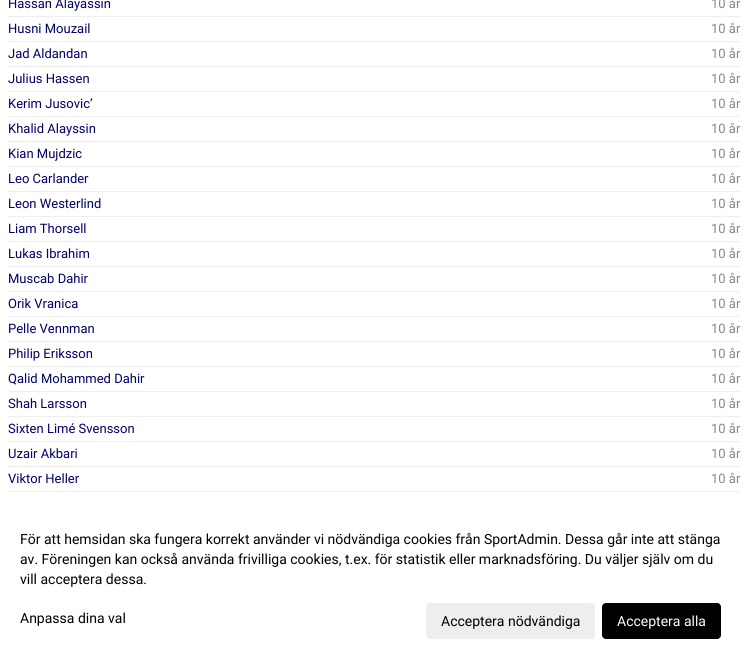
#include <cairo.h>
#include <math.h>
#include <stddef.h>


static void round_rect(cairo_t *cr, double x, double y, double w, double h, double r) {
    cairo_new_sub_path(cr);
    cairo_arc(cr, x + w - r, y + h - r, r, 0, M_PI / 2);
    cairo_arc(cr, x + r, y + h - r, r, M_PI / 2, M_PI);
    cairo_arc(cr, x + r, y + r, r, M_PI, 1.5 * M_PI);
    cairo_arc(cr, x + w - r, y + r, r, 1.5 * M_PI, 2 * M_PI);
    cairo_close_path(cr);
}

int main(void) {
    cairo_surface_t *surface = cairo_image_surface_create(CAIRO_FORMAT_RGB24, 748, 659);
    cairo_t *cr = cairo_create(surface);
    cairo_font_options_t *options = cairo_font_options_create();
    cairo_font_options_set_hint_metrics(options, CAIRO_HINT_METRICS_OFF);
    cairo_font_options_set_hint_style(options, CAIRO_HINT_STYLE_NONE);
    cairo_set_font_options(cr, options);
    cairo_set_miter_limit(cr, 4);
    cairo_set_source_rgb(cr, 1, 1, 1);
    cairo_paint(cr);
    cairo_select_font_face(cr, "Roboto", CAIRO_FONT_SLANT_NORMAL, CAIRO_FONT_WEIGHT_NORMAL);
    cairo_set_font_size(cr, 13);
    cairo_set_source_rgb(cr, 0, 0, 0.4);
    cairo_move_to(cr, 8, 8);
    cairo_show_text(cr, "Hassan Alayassin");
    cairo_set_source_rgb(cr, 0.533, 0.533, 0.533);
    cairo_move_to(cr, 711, 8);
    cairo_show_text(cr, "10 år");
    cairo_set_source_rgb(cr, 0.933, 0.933, 0.933);
    cairo_rectangle(cr, 8, 16, 732, 1);
    cairo_fill(cr);
    cairo_set_source_rgb(cr, 0, 0, 0.4);
    cairo_move_to(cr, 8, 33);
    cairo_show_text(cr, "Husni Mouzail");
    cairo_set_source_rgb(cr, 0.533, 0.533, 0.533);
    cairo_move_to(cr, 711, 33);
    cairo_show_text(cr, "10 år");
    cairo_set_source_rgb(cr, 0.933, 0.933, 0.933);
    cairo_rectangle(cr, 8, 41, 732, 1);
    cairo_fill(cr);
    cairo_set_source_rgb(cr, 0, 0, 0.4);
    cairo_move_to(cr, 8, 58);
    cairo_show_text(cr, "Jad Aldandan");
    cairo_set_source_rgb(cr, 0.533, 0.533, 0.533);
    cairo_move_to(cr, 711, 58);
    cairo_show_text(cr, "10 år");
    cairo_set_source_rgb(cr, 0.933, 0.933, 0.933);
    cairo_rectangle(cr, 8, 66, 732, 1);
    cairo_fill(cr);
    cairo_set_source_rgb(cr, 0, 0, 0.4);
    cairo_move_to(cr, 8, 83);
    cairo_show_text(cr, "Julius Hassen");
    cairo_set_source_rgb(cr, 0.533, 0.533, 0.533);
    cairo_move_to(cr, 711, 83);
    cairo_show_text(cr, "10 år");
    cairo_set_source_rgb(cr, 0.933, 0.933, 0.933);
    cairo_rectangle(cr, 8, 91, 732, 1);
    cairo_fill(cr);
    cairo_set_source_rgb(cr, 0, 0, 0.4);
    cairo_move_to(cr, 8, 108);
    cairo_show_text(cr, "Kerim Jusovic’");
    cairo_set_source_rgb(cr, 0.533, 0.533, 0.533);
    cairo_move_to(cr, 711, 108);
    cairo_show_text(cr, "10 år");
    cairo_set_source_rgb(cr, 0.933, 0.933, 0.933);
    cairo_rectangle(cr, 8, 116, 732, 1);
    cairo_fill(cr);
    cairo_set_source_rgb(cr, 0, 0, 0.4);
    cairo_move_to(cr, 8, 133);
    cairo_show_text(cr, "Khalid Alayssin");
    cairo_set_source_rgb(cr, 0.533, 0.533, 0.533);
    cairo_move_to(cr, 711, 133);
    cairo_show_text(cr, "10 år");
    cairo_set_source_rgb(cr, 0.933, 0.933, 0.933);
    cairo_rectangle(cr, 8, 141, 732, 1);
    cairo_fill(cr);
    cairo_set_source_rgb(cr, 0, 0, 0.4);
    cairo_move_to(cr, 8, 158);
    cairo_show_text(cr, "Kian Mujdzic");
    cairo_set_source_rgb(cr, 0.533, 0.533, 0.533);
    cairo_move_to(cr, 711, 158);
    cairo_show_text(cr, "10 år");
    cairo_set_source_rgb(cr, 0.933, 0.933, 0.933);
    cairo_rectangle(cr, 8, 166, 732, 1);
    cairo_fill(cr);
    cairo_set_source_rgb(cr, 0, 0, 0.4);
    cairo_move_to(cr, 8, 183);
    cairo_show_text(cr, "Leo Carlander");
    cairo_set_source_rgb(cr, 0.533, 0.533, 0.533);
    cairo_move_to(cr, 711, 183);
    cairo_show_text(cr, "10 år");
    cairo_set_source_rgb(cr, 0.933, 0.933, 0.933);
    cairo_rectangle(cr, 8, 191, 732, 1);
    cairo_fill(cr);
    cairo_set_source_rgb(cr, 0, 0, 0.4);
    cairo_move_to(cr, 8, 208);
    cairo_show_text(cr, "Leon Westerlind");
    cairo_set_source_rgb(cr, 0.533, 0.533, 0.533);
    cairo_move_to(cr, 711, 208);
    cairo_show_text(cr, "10 år");
    cairo_set_source_rgb(cr, 0.933, 0.933, 0.933);
    cairo_rectangle(cr, 8, 216, 732, 1);
    cairo_fill(cr);
    cairo_set_source_rgb(cr, 0, 0, 0.4);
    cairo_move_to(cr, 8, 233);
    cairo_show_text(cr, "Liam Thorsell");
    cairo_set_source_rgb(cr, 0.533, 0.533, 0.533);
    cairo_move_to(cr, 711, 233);
    cairo_show_text(cr, "10 år");
    cairo_set_source_rgb(cr, 0.933, 0.933, 0.933);
    cairo_rectangle(cr, 8, 241, 732, 1);
    cairo_fill(cr);
    cairo_set_source_rgb(cr, 0, 0, 0.4);
    cairo_move_to(cr, 8, 258);
    cairo_show_text(cr, "Lukas Ibrahim");
    cairo_set_source_rgb(cr, 0.533, 0.533, 0.533);
    cairo_move_to(cr, 711, 258);
    cairo_show_text(cr, "10 år");
    cairo_set_source_rgb(cr, 0.933, 0.933, 0.933);
    cairo_rectangle(cr, 8, 266, 732, 1);
    cairo_fill(cr);
    cairo_set_source_rgb(cr, 0, 0, 0.4);
    cairo_move_to(cr, 8, 283);
    cairo_show_text(cr, "Muscab Dahir");
    cairo_set_source_rgb(cr, 0.533, 0.533, 0.533);
    cairo_move_to(cr, 711, 283);
    cairo_show_text(cr, "10 år");
    cairo_set_source_rgb(cr, 0.933, 0.933, 0.933);
    cairo_rectangle(cr, 8, 291, 732, 1);
    cairo_fill(cr);
    cairo_set_source_rgb(cr, 0, 0, 0.4);
    cairo_move_to(cr, 8, 308);
    cairo_show_text(cr, "Orik Vranica");
    cairo_set_source_rgb(cr, 0.533, 0.533, 0.533);
    cairo_move_to(cr, 711, 308);
    cairo_show_text(cr, "10 år");
    cairo_set_source_rgb(cr, 0.933, 0.933, 0.933);
    cairo_rectangle(cr, 8, 316, 732, 1);
    cairo_fill(cr);
    cairo_set_source_rgb(cr, 0, 0, 0.4);
    cairo_move_to(cr, 8, 333);
    cairo_show_text(cr, "Pelle Vennman");
    cairo_set_source_rgb(cr, 0.533, 0.533, 0.533);
    cairo_move_to(cr, 711, 333);
    cairo_show_text(cr, "10 år");
    cairo_set_source_rgb(cr, 0.933, 0.933, 0.933);
    cairo_rectangle(cr, 8, 341, 732, 1);
    cairo_fill(cr);
    cairo_set_source_rgb(cr, 0, 0, 0.4);
    cairo_move_to(cr, 8, 358);
    cairo_show_text(cr, "Philip Eriksson");
    cairo_set_source_rgb(cr, 0.533, 0.533, 0.533);
    cairo_move_to(cr, 711, 358);
    cairo_show_text(cr, "10 år");
    cairo_set_source_rgb(cr, 0.933, 0.933, 0.933);
    cairo_rectangle(cr, 8, 366, 732, 1);
    cairo_fill(cr);
    cairo_set_source_rgb(cr, 0, 0, 0.4);
    cairo_move_to(cr, 8, 383);
    cairo_show_text(cr, "Qalid Mohammed Dahir");
    cairo_set_source_rgb(cr, 0.533, 0.533, 0.533);
    cairo_move_to(cr, 711, 383);
    cairo_show_text(cr, "10 år");
    cairo_set_source_rgb(cr, 0.933, 0.933, 0.933);
    cairo_rectangle(cr, 8, 391, 732, 1);
    cairo_fill(cr);
    cairo_set_source_rgb(cr, 0, 0, 0.4);
    cairo_move_to(cr, 8, 408);
    cairo_show_text(cr, "Shah Larsson");
    cairo_set_source_rgb(cr, 0.533, 0.533, 0.533);
    cairo_move_to(cr, 711, 408);
    cairo_show_text(cr, "10 år");
    cairo_set_source_rgb(cr, 0.933, 0.933, 0.933);
    cairo_rectangle(cr, 8, 416, 732, 1);
    cairo_fill(cr);
    cairo_set_source_rgb(cr, 0, 0, 0.4);
    cairo_move_to(cr, 8, 433);
    cairo_show_text(cr, "Sixten Limé Svensson");
    cairo_set_source_rgb(cr, 0.533, 0.533, 0.533);
    cairo_move_to(cr, 711, 433);
    cairo_show_text(cr, "10 år");
    cairo_set_source_rgb(cr, 0.933, 0.933, 0.933);
    cairo_rectangle(cr, 8, 441, 732, 1);
    cairo_fill(cr);
    cairo_set_source_rgb(cr, 0, 0, 0.4);
    cairo_move_to(cr, 8, 458);
    cairo_show_text(cr, "Uzair Akbari");
    cairo_set_source_rgb(cr, 0.533, 0.533, 0.533);
    cairo_move_to(cr, 711, 458);
    cairo_show_text(cr, "10 år");
    cairo_set_source_rgb(cr, 0.933, 0.933, 0.933);
    cairo_rectangle(cr, 8, 466, 732, 1);
    cairo_fill(cr);
    cairo_set_source_rgb(cr, 0, 0, 0.4);
    cairo_move_to(cr, 8, 483);
    cairo_show_text(cr, "Viktor Heller");
    cairo_set_source_rgb(cr, 0.533, 0.533, 0.533);
    cairo_move_to(cr, 711, 483);
    cairo_show_text(cr, "10 år");
    cairo_set_source_rgb(cr, 0.933, 0.933, 0.933);
    cairo_rectangle(cr, 8, 491, 732, 1);
    cairo_fill(cr);
    cairo_set_font_size(cr, 14);
    cairo_set_source_rgb(cr, 0, 0, 0);
    cairo_move_to(cr, 20, 544);
    cairo_show_text(cr, "För att hemsidan ska fungera korrekt använder vi nödvändiga cookies från SportAdmin. Dessa går inte att stänga");
    cairo_move_to(cr, 20, 564);
    cairo_show_text(cr, "av. Föreningen kan också använda frivilliga cookies, t.ex. för statistik eller marknadsföring. Du väljer själv om du");
    cairo_move_to(cr, 20, 584);
    cairo_show_text(cr, "vill acceptera dessa.");
    cairo_move_to(cr, 20, 623);
    cairo_show_text(cr, "Anpassa dina val");
    cairo_set_source_rgb(cr, 0.933, 0.933, 0.933);
    round_rect(cr, 426, 603, 169, 36, 4);
    cairo_fill(cr);
    cairo_set_source_rgb(cr, 0, 0, 0);
    cairo_move_to(cr, 441, 626);
    cairo_show_text(cr, "Acceptera nödvändiga");
    round_rect(cr, 602, 603, 119, 36, 4);
    cairo_fill(cr);
    cairo_set_source_rgb(cr, 1, 1, 1);
    cairo_move_to(cr, 617, 626);
    cairo_show_text(cr, "Acceptera alla");
    cairo_surface_write_to_png(surface, "page.png");
    cairo_font_options_destroy(options);
    cairo_destroy(cr);
    cairo_surface_destroy(surface);
    return 0;
}
